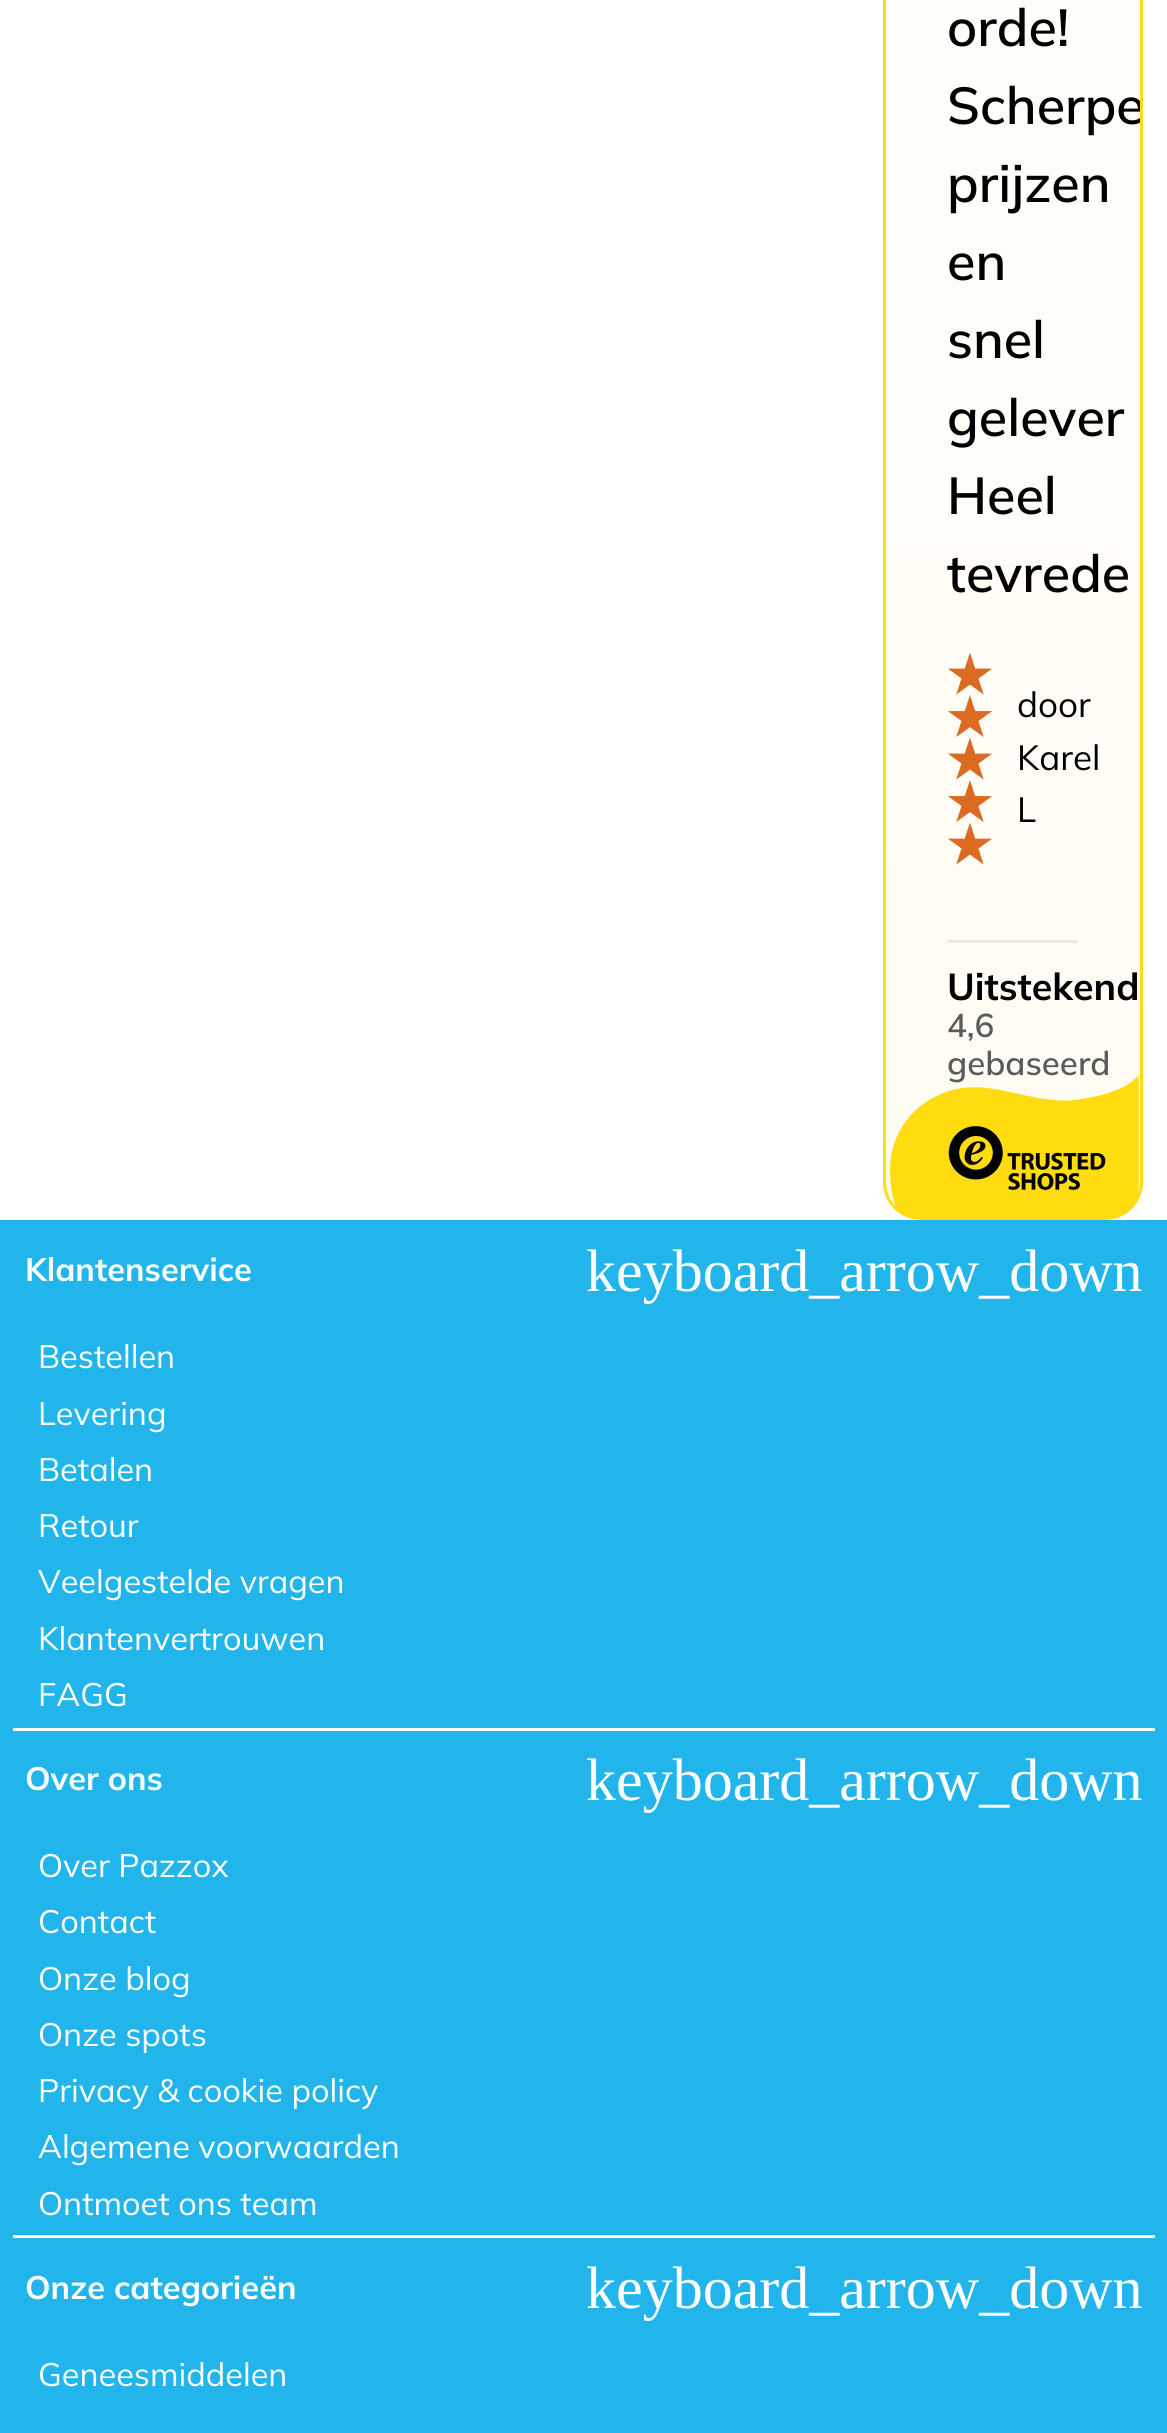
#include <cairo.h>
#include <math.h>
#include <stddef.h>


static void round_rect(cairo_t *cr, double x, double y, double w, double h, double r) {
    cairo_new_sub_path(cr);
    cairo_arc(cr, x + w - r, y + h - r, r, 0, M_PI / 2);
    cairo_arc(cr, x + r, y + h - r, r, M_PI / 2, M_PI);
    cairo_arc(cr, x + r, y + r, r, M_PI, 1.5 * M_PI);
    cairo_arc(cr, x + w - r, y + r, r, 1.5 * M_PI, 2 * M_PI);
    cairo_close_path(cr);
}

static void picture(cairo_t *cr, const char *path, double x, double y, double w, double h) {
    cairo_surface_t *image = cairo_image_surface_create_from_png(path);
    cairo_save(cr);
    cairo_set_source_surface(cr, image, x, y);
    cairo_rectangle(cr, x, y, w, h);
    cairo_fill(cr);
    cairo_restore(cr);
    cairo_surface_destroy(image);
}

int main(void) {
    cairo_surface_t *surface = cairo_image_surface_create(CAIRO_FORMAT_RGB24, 1167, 2433);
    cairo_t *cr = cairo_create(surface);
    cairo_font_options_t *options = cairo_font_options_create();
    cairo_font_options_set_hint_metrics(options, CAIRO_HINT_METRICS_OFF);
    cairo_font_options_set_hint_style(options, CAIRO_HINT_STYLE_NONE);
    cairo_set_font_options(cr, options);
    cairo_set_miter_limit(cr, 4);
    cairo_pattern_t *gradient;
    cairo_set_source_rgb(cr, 1, 1, 1);
    cairo_paint(cr);
    cairo_save(cr);
    round_rect(cr, 883, -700, 260, 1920, 38);
    cairo_clip(cr);
    gradient = cairo_pattern_create_linear(996, 1219, 1029, -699);
    cairo_pattern_add_color_stop_rgba(gradient, 0, 1, 0.988, 0.949, 1);
    cairo_pattern_add_color_stop_rgba(gradient, 1, 1, 1, 1, 1);
    cairo_set_source(cr, gradient);
    cairo_pattern_destroy(gradient);
    cairo_rectangle(cr, 885, 0, 255, 1218);
    cairo_fill(cr);
    cairo_restore(cr);
    round_rect(cr, 884.5, -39.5, 257, 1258, 36.5);
    cairo_set_source_rgb(cr, 1, 0.863, 0.059);
    cairo_set_line_width(cr, 3);
    cairo_stroke(cr);
    cairo_select_font_face(cr, "Mulish SemiBold", CAIRO_FONT_SLANT_NORMAL, CAIRO_FONT_WEIGHT_NORMAL);
    cairo_set_font_size(cr, 52);
    cairo_set_source_rgb(cr, 0, 0, 0);
    cairo_move_to(cr, 947, 46);
    cairo_show_text(cr, "orde!");
    cairo_save(cr);
    round_rect(cr, 885, -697, 255, 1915, 35);
    cairo_clip(cr);
    cairo_move_to(cr, 947, 124);
    cairo_show_text(cr, "Scherpe");
    cairo_restore(cr);
    cairo_move_to(cr, 947, 202);
    cairo_show_text(cr, "prijzen");
    cairo_move_to(cr, 947, 280);
    cairo_show_text(cr, "en");
    cairo_move_to(cr, 947, 358);
    cairo_show_text(cr, "snel");
    cairo_move_to(cr, 947, 436);
    cairo_show_text(cr, "gelever");
    cairo_move_to(cr, 947, 514);
    cairo_show_text(cr, "Heel");
    cairo_move_to(cr, 947, 592);
    cairo_show_text(cr, "tevrede");
    picture(cr, "img1.png", 948, 653, 44, 42);
    picture(cr, "img2.png", 948, 695, 44, 42);
    picture(cr, "img3.png", 948, 738, 44, 42);
    picture(cr, "img4.png", 948, 780, 44, 42);
    picture(cr, "img5.png", 948, 823, 44, 42);
    cairo_select_font_face(cr, "Mulish", CAIRO_FONT_SLANT_NORMAL, CAIRO_FONT_WEIGHT_NORMAL);
    cairo_set_font_size(cr, 35);
    cairo_move_to(cr, 1017, 717);
    cairo_show_text(cr, "door");
    cairo_move_to(cr, 1017, 770);
    cairo_show_text(cr, "Karel");
    cairo_move_to(cr, 1017, 822);
    cairo_show_text(cr, "L");
    cairo_set_source_rgb(cr, 0.922, 0.91, 0.878);
    cairo_rectangle(cr, 948, 940, 130, 3);
    cairo_fill(cr);
    cairo_select_font_face(cr, "Mulish", CAIRO_FONT_SLANT_NORMAL, CAIRO_FONT_WEIGHT_BOLD);
    cairo_set_font_size(cr, 37.5);
    cairo_set_source_rgb(cr, 0, 0, 0);
    cairo_move_to(cr, 947, 1000);
    cairo_show_text(cr, "Uitstekend");
    cairo_select_font_face(cr, "Mulish SemiBold", CAIRO_FONT_SLANT_NORMAL, CAIRO_FONT_WEIGHT_NORMAL);
    cairo_set_font_size(cr, 33);
    cairo_set_source_rgb(cr, 0.349, 0.357, 0.361);
    cairo_move_to(cr, 947, 1037);
    cairo_show_text(cr, "4,6");
    cairo_move_to(cr, 947, 1075);
    cairo_show_text(cr, "gebaseerd");
    picture(cr, "img6.png", 890, 1075, 249, 142);
    cairo_set_source_rgb(cr, 0.129, 0.71, 0.922);
    cairo_rectangle(cr, 0, 1220, 1167, 1213);
    cairo_fill(cr);
    cairo_set_source_rgb(cr, 1, 1, 1);
    cairo_rectangle(cr, 13, 1728, 1142, 3);
    cairo_fill(cr);
    cairo_select_font_face(cr, "Mulish", CAIRO_FONT_SLANT_NORMAL, CAIRO_FONT_WEIGHT_BOLD);
    cairo_set_font_size(cr, 32.5);
    cairo_move_to(cr, 25, 1281);
    cairo_show_text(cr, "Klantenservice");
    cairo_select_font_face(cr, "Liberation Serif", CAIRO_FONT_SLANT_NORMAL, CAIRO_FONT_WEIGHT_NORMAL);
    cairo_set_font_size(cr, 60);
    cairo_move_to(cr, 586, 1291);
    cairo_show_text(cr, "keyboard_arrow_down");
    cairo_select_font_face(cr, "Mulish", CAIRO_FONT_SLANT_NORMAL, CAIRO_FONT_WEIGHT_NORMAL);
    cairo_set_font_size(cr, 32.5);
    cairo_move_to(cr, 38, 1368);
    cairo_show_text(cr, "Bestellen");
    cairo_move_to(cr, 38, 1425);
    cairo_show_text(cr, "Levering");
    cairo_move_to(cr, 38, 1481);
    cairo_show_text(cr, "Betalen");
    cairo_move_to(cr, 38, 1537);
    cairo_show_text(cr, "Retour");
    cairo_move_to(cr, 38, 1593);
    cairo_show_text(cr, "Veelgestelde vragen");
    cairo_move_to(cr, 38, 1650);
    cairo_show_text(cr, "Klantenvertrouwen");
    cairo_move_to(cr, 38, 1706);
    cairo_show_text(cr, "FAGG");
    cairo_rectangle(cr, 13, 2235, 1142, 3);
    cairo_fill(cr);
    cairo_select_font_face(cr, "Mulish", CAIRO_FONT_SLANT_NORMAL, CAIRO_FONT_WEIGHT_BOLD);
    cairo_move_to(cr, 25, 1790);
    cairo_show_text(cr, "Over ons");
    cairo_select_font_face(cr, "Liberation Serif", CAIRO_FONT_SLANT_NORMAL, CAIRO_FONT_WEIGHT_NORMAL);
    cairo_set_font_size(cr, 60);
    cairo_move_to(cr, 586, 1800);
    cairo_show_text(cr, "keyboard_arrow_down");
    cairo_select_font_face(cr, "Mulish", CAIRO_FONT_SLANT_NORMAL, CAIRO_FONT_WEIGHT_NORMAL);
    cairo_set_font_size(cr, 32.5);
    cairo_move_to(cr, 38, 1877);
    cairo_show_text(cr, "Over Pazzox");
    cairo_move_to(cr, 38, 1933);
    cairo_show_text(cr, "Contact");
    cairo_move_to(cr, 38, 1990);
    cairo_show_text(cr, "Onze blog");
    cairo_move_to(cr, 38, 2046);
    cairo_show_text(cr, "Onze spots");
    cairo_move_to(cr, 38, 2102);
    cairo_show_text(cr, "Privacy & cookie policy");
    cairo_move_to(cr, 38, 2158);
    cairo_show_text(cr, "Algemene voorwaarden");
    cairo_move_to(cr, 38, 2215);
    cairo_show_text(cr, "Ontmoet ons team");
    cairo_select_font_face(cr, "Mulish", CAIRO_FONT_SLANT_NORMAL, CAIRO_FONT_WEIGHT_BOLD);
    cairo_move_to(cr, 25, 2299);
    cairo_show_text(cr, "Onze categorieën");
    cairo_select_font_face(cr, "Liberation Serif", CAIRO_FONT_SLANT_NORMAL, CAIRO_FONT_WEIGHT_NORMAL);
    cairo_set_font_size(cr, 60);
    cairo_move_to(cr, 586, 2308);
    cairo_show_text(cr, "keyboard_arrow_down");
    cairo_select_font_face(cr, "Mulish", CAIRO_FONT_SLANT_NORMAL, CAIRO_FONT_WEIGHT_NORMAL);
    cairo_set_font_size(cr, 32.5);
    cairo_move_to(cr, 38, 2386);
    cairo_show_text(cr, "Geneesmiddelen");
    cairo_surface_write_to_png(surface, "page.png");
    cairo_font_options_destroy(options);
    cairo_destroy(cr);
    cairo_surface_destroy(surface);
    return 0;
}
